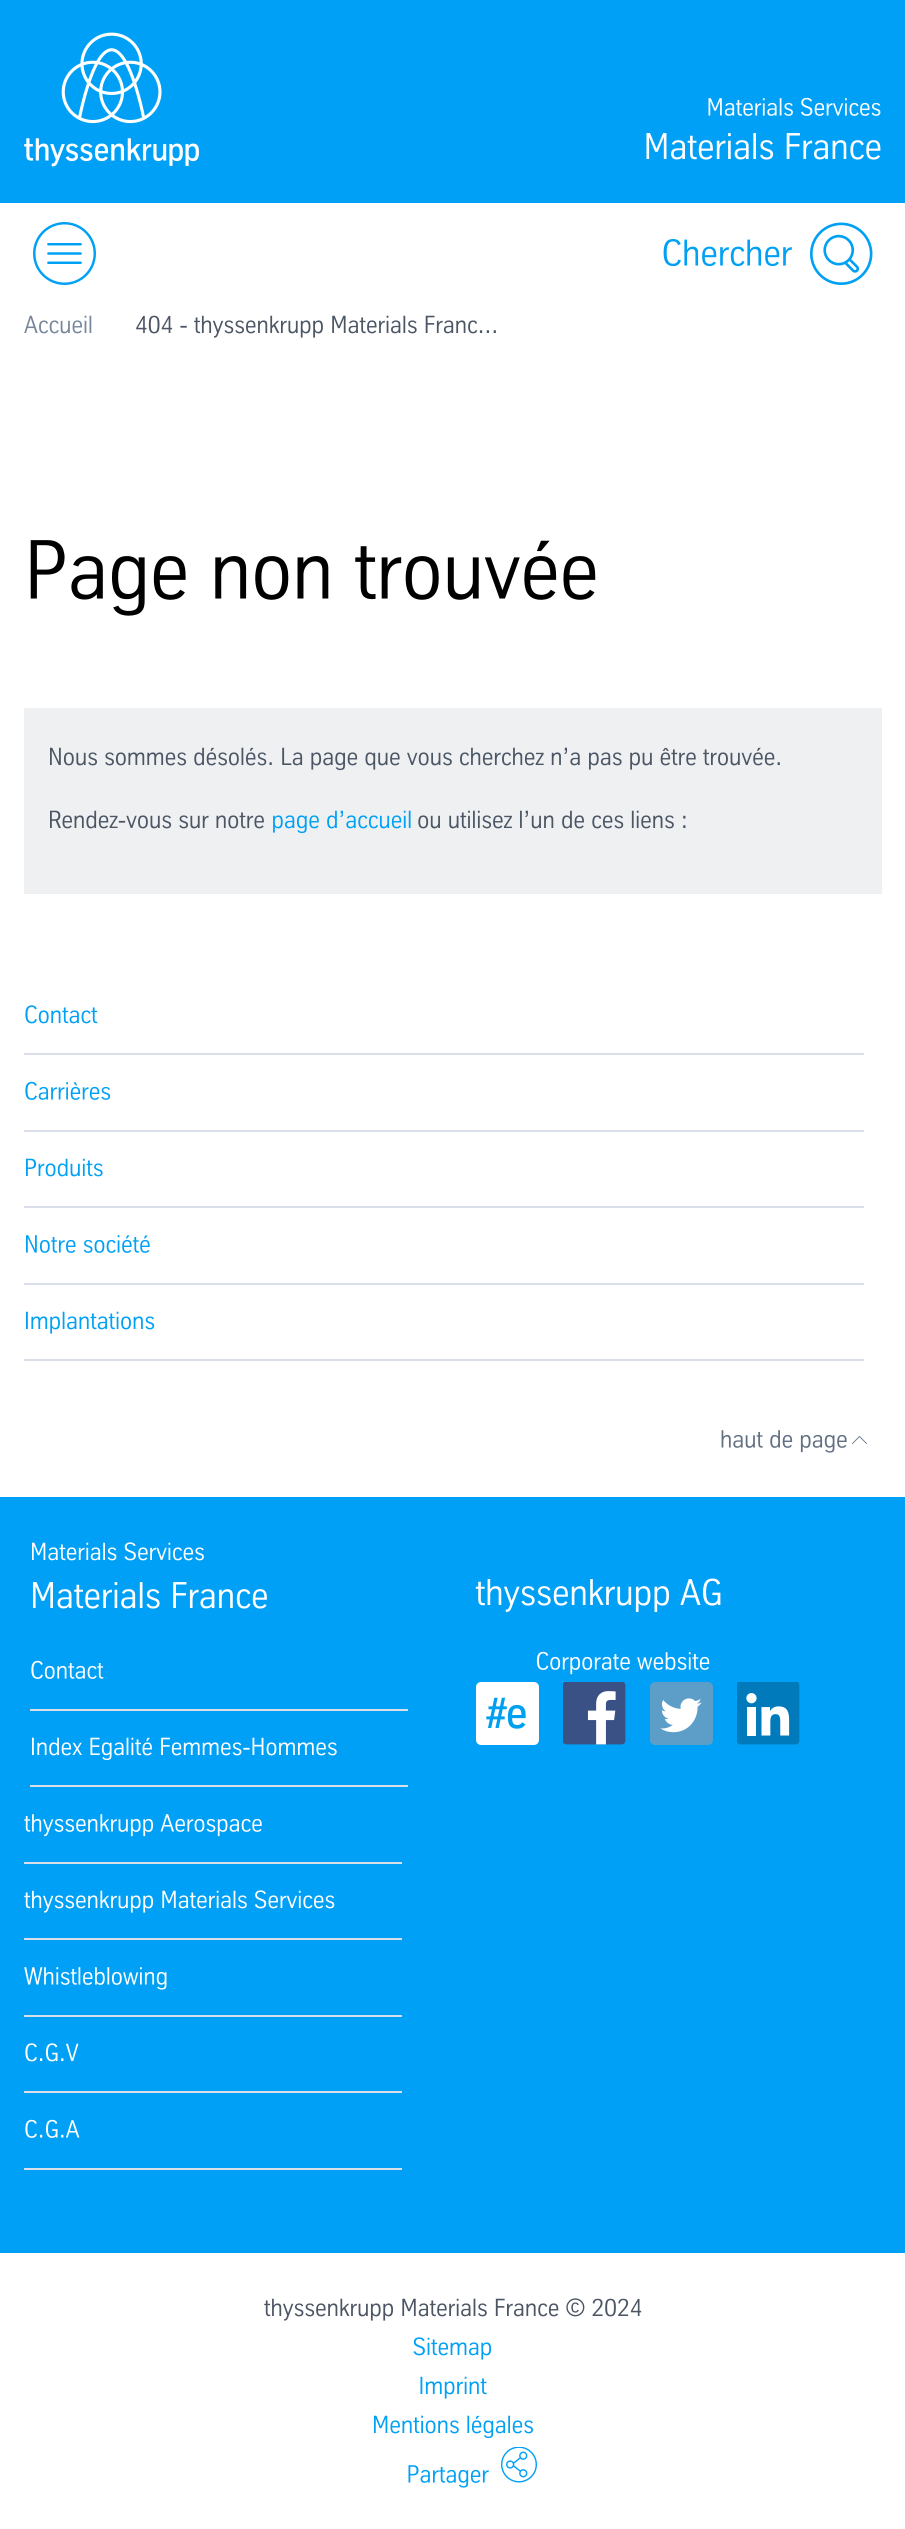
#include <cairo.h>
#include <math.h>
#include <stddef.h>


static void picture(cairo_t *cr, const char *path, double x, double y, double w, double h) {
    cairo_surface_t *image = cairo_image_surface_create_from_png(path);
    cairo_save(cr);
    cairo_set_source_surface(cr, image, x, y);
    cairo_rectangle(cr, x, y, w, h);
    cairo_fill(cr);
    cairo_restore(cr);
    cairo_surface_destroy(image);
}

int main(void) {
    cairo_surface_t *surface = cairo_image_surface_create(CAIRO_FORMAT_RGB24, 905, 2529);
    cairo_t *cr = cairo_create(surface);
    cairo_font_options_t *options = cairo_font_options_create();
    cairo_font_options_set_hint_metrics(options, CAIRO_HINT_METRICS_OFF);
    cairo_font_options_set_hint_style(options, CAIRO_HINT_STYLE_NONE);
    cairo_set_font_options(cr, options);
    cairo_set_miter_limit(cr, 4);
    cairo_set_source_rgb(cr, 1, 1, 1);
    cairo_paint(cr);
    cairo_set_source_rgb(cr, 0, 0.627, 0.961);
    cairo_rectangle(cr, 0, 0, 905, 203);
    cairo_fill(cr);
    picture(cr, "img1.png", 24, 32, 175, 135);
    picture(cr, "img2.png", 708, 97, 173, 19);
    picture(cr, "img3.png", 646, 133, 235, 27);
    picture(cr, "img4.png", 33, 222, 63, 63);
    picture(cr, "img5.png", 663, 239, 129, 28);
    picture(cr, "img6.png", 810, 222, 63, 63);
    picture(cr, "img7.png", 24, 315, 68, 19);
    picture(cr, "img8.png", 136, 315, 360, 23);
    picture(cr, "img9.png", 30, 540, 566, 76);
    cairo_set_source_rgb(cr, 0.933, 0.941, 0.949);
    cairo_rectangle(cr, 24, 708, 858, 186);
    cairo_fill(cr);
    picture(cr, "img10.png", 50, 747, 730, 24);
    picture(cr, "img11.png", 50, 810, 214, 19);
    picture(cr, "img12.png", 273, 810, 138, 24);
    picture(cr, "img13.png", 418, 810, 268, 19);
    cairo_set_source_rgb(cr, 0.851, 0.871, 0.91);
    cairo_rectangle(cr, 24, 1053, 840, 2);
    cairo_fill(cr);
    picture(cr, "img14.png", 25, 1005, 73, 19);
    cairo_rectangle(cr, 24, 1130, 840, 2);
    cairo_fill(cr);
    picture(cr, "img15.png", 25, 1081, 86, 19);
    cairo_rectangle(cr, 24, 1206, 840, 2);
    cairo_fill(cr);
    picture(cr, "img16.png", 26, 1158, 77, 19);
    cairo_rectangle(cr, 24, 1283, 840, 2);
    cairo_fill(cr);
    picture(cr, "img17.png", 26, 1235, 124, 18);
    cairo_rectangle(cr, 24, 1359, 840, 2);
    cairo_fill(cr);
    picture(cr, "img18.png", 26, 1311, 129, 23);
    picture(cr, "img19.png", 721, 1430, 126, 23);
    picture(cr, "img20.png", 852, 1436, 15, 8);
    cairo_set_source_rgb(cr, 0, 0.627, 0.961);
    cairo_rectangle(cr, 0, 1497, 905, 756);
    cairo_fill(cr);
    picture(cr, "img21.png", 32, 1542, 172, 19);
    picture(cr, "img22.png", 33, 1582, 234, 27);
    cairo_set_source_rgb(cr, 0.851, 0.871, 0.91);
    cairo_rectangle(cr, 30, 1709, 378, 2);
    cairo_fill(cr);
    picture(cr, "img23.png", 31, 1660, 73, 19);
    cairo_rectangle(cr, 30, 1785, 378, 2);
    cairo_fill(cr);
    picture(cr, "img24.png", 32, 1737, 305, 24);
    cairo_rectangle(cr, 24, 1862, 378, 2);
    cairo_fill(cr);
    picture(cr, "img25.png", 24, 1814, 238, 23);
    cairo_rectangle(cr, 24, 1938, 378, 2);
    cairo_fill(cr);
    picture(cr, "img26.png", 24, 1890, 311, 23);
    cairo_rectangle(cr, 24, 2015, 378, 2);
    cairo_fill(cr);
    picture(cr, "img27.png", 24, 1967, 143, 23);
    cairo_rectangle(cr, 24, 2091, 378, 2);
    cairo_fill(cr);
    picture(cr, "img28.png", 25, 2043, 54, 19);
    cairo_rectangle(cr, 24, 2168, 378, 2);
    cairo_fill(cr);
    picture(cr, "img29.png", 25, 2119, 55, 19);
    picture(cr, "img30.png", 475, 1578, 246, 34);
    picture(cr, "img31.png", 536, 1651, 174, 24);
    picture(cr, "img32.png", 476, 1682, 63, 63);
    picture(cr, "img33.png", 563, 1682, 63, 63);
    picture(cr, "img34.png", 650, 1682, 63, 63);
    picture(cr, "img35.png", 737, 1682, 63, 63);
    picture(cr, "img36.png", 264, 2298, 378, 23);
    picture(cr, "img37.png", 413, 2337, 79, 23);
    picture(cr, "img38.png", 420, 2376, 67, 23);
    picture(cr, "img39.png", 374, 2415, 159, 24);
    picture(cr, "img40.png", 408, 2465, 81, 23);
    picture(cr, "img41.png", 501, 2447, 36, 36);
    cairo_surface_write_to_png(surface, "page.png");
    cairo_font_options_destroy(options);
    cairo_destroy(cr);
    cairo_surface_destroy(surface);
    return 0;
}
